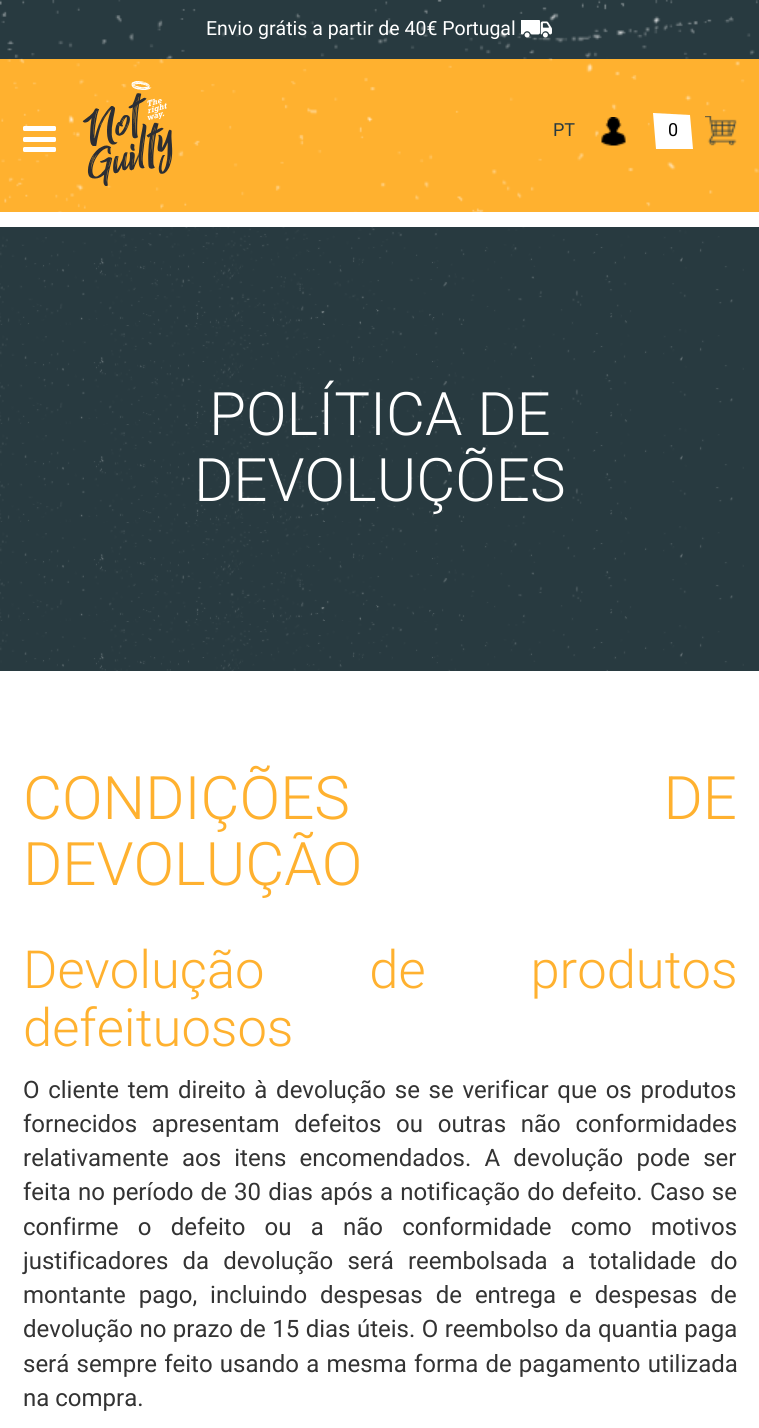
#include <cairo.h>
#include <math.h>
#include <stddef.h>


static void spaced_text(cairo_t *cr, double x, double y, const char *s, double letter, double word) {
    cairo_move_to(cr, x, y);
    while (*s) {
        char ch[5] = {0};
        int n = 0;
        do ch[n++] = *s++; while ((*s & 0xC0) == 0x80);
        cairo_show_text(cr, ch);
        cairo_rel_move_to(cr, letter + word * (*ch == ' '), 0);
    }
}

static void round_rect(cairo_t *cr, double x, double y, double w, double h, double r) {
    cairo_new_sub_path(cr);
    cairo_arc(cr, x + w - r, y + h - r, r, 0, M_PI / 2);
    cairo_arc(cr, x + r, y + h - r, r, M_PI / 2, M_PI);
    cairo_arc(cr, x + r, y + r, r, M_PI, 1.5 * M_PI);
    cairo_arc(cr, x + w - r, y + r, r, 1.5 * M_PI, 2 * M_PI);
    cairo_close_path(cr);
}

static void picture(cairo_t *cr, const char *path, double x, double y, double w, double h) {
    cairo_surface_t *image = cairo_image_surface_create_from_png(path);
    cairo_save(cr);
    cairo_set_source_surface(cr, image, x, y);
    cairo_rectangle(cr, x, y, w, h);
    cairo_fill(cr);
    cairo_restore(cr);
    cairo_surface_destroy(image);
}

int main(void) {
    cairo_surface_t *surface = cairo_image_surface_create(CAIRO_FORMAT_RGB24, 759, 1428);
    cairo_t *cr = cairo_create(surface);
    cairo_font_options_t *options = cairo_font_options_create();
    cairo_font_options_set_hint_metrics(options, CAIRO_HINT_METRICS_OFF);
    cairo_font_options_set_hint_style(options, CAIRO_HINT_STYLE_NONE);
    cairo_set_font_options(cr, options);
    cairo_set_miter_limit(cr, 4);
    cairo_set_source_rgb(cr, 1, 1, 1);
    cairo_paint(cr);
    cairo_set_source_rgb(cr, 0.157, 0.227, 0.251);
    cairo_rectangle(cr, 0, 0, 759, 59);
    cairo_fill(cr);
    picture(cr, "img1.png", 0, 0, 758, 59);
    cairo_select_font_face(cr, "Roboto", CAIRO_FONT_SLANT_NORMAL, CAIRO_FONT_WEIGHT_NORMAL);
    cairo_set_font_size(cr, 19.5);
    cairo_set_source_rgb(cr, 1, 1, 1);
    cairo_move_to(cr, 206, 35);
    cairo_show_text(cr, "Envio grátis a partir de 40€ Portugal");
    picture(cr, "img2.png", 521, 20, 31, 18);
    cairo_set_source_rgb(cr, 1, 0.694, 0.184);
    cairo_rectangle(cr, 0, 59, 759, 153);
    cairo_fill(cr);
    picture(cr, "img3.png", 1, 58, 758, 154);
    cairo_set_source_rgb(cr, 1, 1, 1);
    round_rect(cr, 23, 126, 33, 5, 1.5);
    cairo_fill(cr);
    round_rect(cr, 23, 137, 33, 5, 1.5);
    cairo_fill(cr);
    round_rect(cr, 23, 147, 33, 5, 1.5);
    cairo_fill(cr);
    picture(cr, "img4.png", 82, 81, 91, 105);
    cairo_set_font_size(cr, 18);
    cairo_set_source_rgb(cr, 0.157, 0.227, 0.251);
    cairo_move_to(cr, 553, 136);
    cairo_show_text(cr, "PT");
    picture(cr, "img5.png", 601, 117, 25, 29);
    cairo_set_source_rgb(cr, 1, 1, 1);
    cairo_new_path(cr);
    cairo_move_to(cr, 653, 113);
    cairo_line_to(cr, 656, 149);
    cairo_line_to(cr, 693, 149);
    cairo_line_to(cr, 690, 115);
    cairo_close_path(cr);
    cairo_fill(cr);
    cairo_set_source_rgb(cr, 0, 0, 0);
    cairo_move_to(cr, 668, 136);
    cairo_show_text(cr, "0");
    picture(cr, "img6.png", 705, 116, 32, 30);
    cairo_set_source_rgb(cr, 0.157, 0.227, 0.251);
    cairo_rectangle(cr, 0, 227, 759, 444);
    cairo_fill(cr);
    picture(cr, "img7.png", 0, 227, 744, 444);
    cairo_select_font_face(cr, "Roboto Light", CAIRO_FONT_SLANT_NORMAL, CAIRO_FONT_WEIGHT_NORMAL);
    cairo_set_font_size(cr, 60);
    cairo_set_source_rgb(cr, 1, 1, 1);
    cairo_move_to(cr, 209, 435);
    cairo_show_text(cr, "POLÍTICA DE");
    cairo_move_to(cr, 194, 501);
    cairo_show_text(cr, "DEVOLUÇÕES");
    cairo_set_source_rgb(cr, 1, 0.694, 0.184);
    spaced_text(cr, 23, 819, "CONDIÇÕES DE", 0, 299);
    cairo_move_to(cr, 23, 885);
    cairo_show_text(cr, "DEVOLUÇÃO");
    cairo_set_font_size(cr, 52.5);
    spaced_text(cr, 23, 988, "Devolução de produtos", 0, 92);
    cairo_move_to(cr, 23, 1046);
    cairo_show_text(cr, "defeituosos");
    cairo_select_font_face(cr, "Roboto", CAIRO_FONT_SLANT_NORMAL, CAIRO_FONT_WEIGHT_NORMAL);
    cairo_set_font_size(cr, 24);
    cairo_set_source_rgb(cr, 0.2, 0.2, 0.2);
    spaced_text(cr, 23, 1098, "O cliente tem direito à devolução se se verificar que os produtos", 0, 2.75);
    spaced_text(cr, 23, 1132, "fornecidos apresentam defeitos ou outras não conformidades", 0, 8.75);
    spaced_text(cr, 23, 1166, "relativamente aos itens encomendados. A devolução pode ser", 0, 7.25);
    spaced_text(cr, 23, 1200, "feita no período de 30 dias após a notificação do defeito. Caso se", 0, 1.25);
    spaced_text(cr, 23, 1235, "confirme o defeito ou a não conformidade como motivos", 0, 13.25);
    spaced_text(cr, 23, 1269, "justificadores da devolução será reembolsada a totalidade do", 0, 8.25);
    spaced_text(cr, 23, 1303, "montante pago, incluindo despesas de entrega e despesas de", 0, 7);
    spaced_text(cr, 23, 1337, "devolução no prazo de 15 dias úteis. O reembolso da quantia paga", 0, 0.5);
    spaced_text(cr, 23, 1372, "será sempre feito usando a mesma forma de pagamento utilizada", 0, 1.25);
    cairo_move_to(cr, 23, 1406);
    cairo_show_text(cr, "na compra.");
    cairo_surface_write_to_png(surface, "page.png");
    cairo_font_options_destroy(options);
    cairo_destroy(cr);
    cairo_surface_destroy(surface);
    return 0;
}
